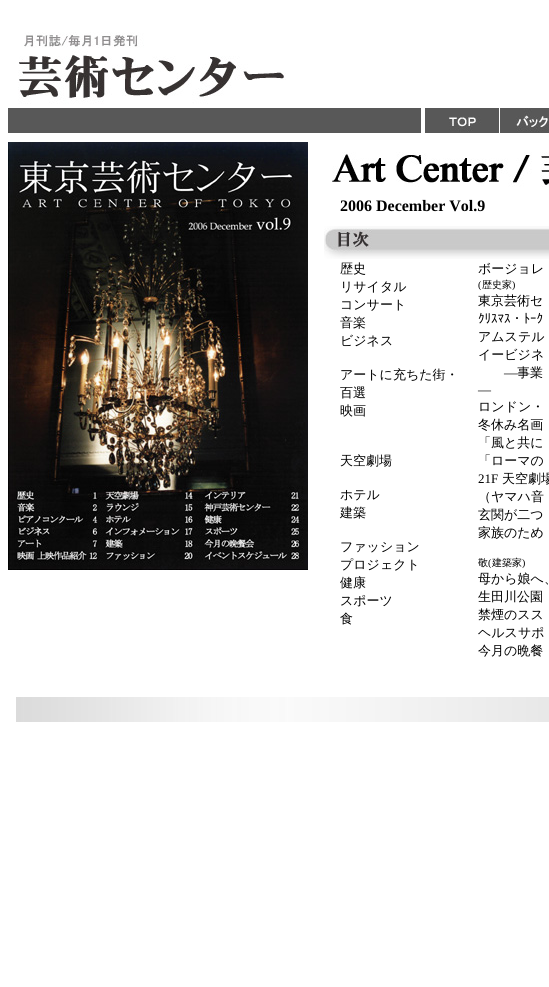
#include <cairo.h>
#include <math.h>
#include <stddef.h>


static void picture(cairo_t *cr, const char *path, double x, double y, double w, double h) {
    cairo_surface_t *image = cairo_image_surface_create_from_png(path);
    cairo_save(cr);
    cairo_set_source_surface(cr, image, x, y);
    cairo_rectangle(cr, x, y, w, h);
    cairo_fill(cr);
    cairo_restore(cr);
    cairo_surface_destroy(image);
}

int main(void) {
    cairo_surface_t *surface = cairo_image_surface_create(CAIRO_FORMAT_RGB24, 549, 987);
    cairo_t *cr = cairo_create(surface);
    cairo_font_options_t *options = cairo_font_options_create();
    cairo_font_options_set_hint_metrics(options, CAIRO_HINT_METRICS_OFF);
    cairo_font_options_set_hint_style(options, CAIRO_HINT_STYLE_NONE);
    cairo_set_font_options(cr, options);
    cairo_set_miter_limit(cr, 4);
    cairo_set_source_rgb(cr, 1, 1, 1);
    cairo_paint(cr);
    picture(cr, "img1.png", 18, 32, 268, 72);
    cairo_set_source_rgb(cr, 0.345, 0.345, 0.345);
    cairo_rectangle(cr, 8, 108, 413, 25);
    cairo_fill(cr);
    picture(cr, "img2.png", 425, 108, 74, 25);
    picture(cr, "img3.png", 500, 108, 49, 25);
    picture(cr, "img4.png", 8, 142, 300, 428);
    picture(cr, "img5.png", 332, 152, 217, 35);
    cairo_select_font_face(cr, "Liberation Serif", CAIRO_FONT_SLANT_NORMAL, CAIRO_FONT_WEIGHT_BOLD);
    cairo_set_font_size(cr, 16);
    cairo_set_source_rgb(cr, 0, 0, 0);
    cairo_move_to(cr, 340, 211);
    cairo_show_text(cr, "2006 December Vol.9");
    picture(cr, "img6.png", 324, 226, 225, 33);
    cairo_select_font_face(cr, "WenQuanYi Zen Hei Medium", CAIRO_FONT_SLANT_NORMAL, CAIRO_FONT_WEIGHT_NORMAL);
    cairo_set_font_size(cr, 13);
    cairo_move_to(cr, 340, 273);
    cairo_show_text(cr, "歴史");
    cairo_move_to(cr, 340, 291);
    cairo_show_text(cr, "リサイタル");
    cairo_move_to(cr, 340, 309);
    cairo_show_text(cr, "コンサート");
    cairo_move_to(cr, 340, 327);
    cairo_show_text(cr, "音楽");
    cairo_move_to(cr, 340, 345);
    cairo_show_text(cr, "ビジネス");
    cairo_move_to(cr, 340, 379);
    cairo_show_text(cr, "アートに充ちた街・");
    cairo_move_to(cr, 340, 397);
    cairo_show_text(cr, "百選");
    cairo_move_to(cr, 340, 415);
    cairo_show_text(cr, "映画");
    cairo_move_to(cr, 340, 465);
    cairo_show_text(cr, "天空劇場");
    cairo_move_to(cr, 340, 499);
    cairo_show_text(cr, "ホテル");
    cairo_move_to(cr, 340, 517);
    cairo_show_text(cr, "建築");
    cairo_move_to(cr, 340, 551);
    cairo_show_text(cr, "ファッション");
    cairo_move_to(cr, 340, 569);
    cairo_show_text(cr, "プロジェクト");
    cairo_move_to(cr, 340, 587);
    cairo_show_text(cr, "健康");
    cairo_move_to(cr, 340, 605);
    cairo_show_text(cr, "スポーツ");
    cairo_move_to(cr, 340, 623);
    cairo_show_text(cr, "食");
    cairo_move_to(cr, 478, 273);
    cairo_show_text(cr, "ボージョレ");
    cairo_select_font_face(cr, "Liberation Serif", CAIRO_FONT_SLANT_NORMAL, CAIRO_FONT_WEIGHT_NORMAL);
    cairo_set_font_size(cr, 10);
    cairo_move_to(cr, 478, 288);
    cairo_show_text(cr, "(");
    cairo_select_font_face(cr, "WenQuanYi Zen Hei Medium", CAIRO_FONT_SLANT_NORMAL, CAIRO_FONT_WEIGHT_NORMAL);
    cairo_move_to(cr, 482, 288);
    cairo_show_text(cr, "歴史家");
    cairo_select_font_face(cr, "Liberation Serif", CAIRO_FONT_SLANT_NORMAL, CAIRO_FONT_WEIGHT_NORMAL);
    cairo_move_to(cr, 512, 288);
    cairo_show_text(cr, ")");
    cairo_select_font_face(cr, "WenQuanYi Zen Hei Medium", CAIRO_FONT_SLANT_NORMAL, CAIRO_FONT_WEIGHT_NORMAL);
    cairo_set_font_size(cr, 13);
    cairo_move_to(cr, 478, 305);
    cairo_show_text(cr, "東京芸術セ");
    cairo_select_font_face(cr, "IPAGothic", CAIRO_FONT_SLANT_NORMAL, CAIRO_FONT_WEIGHT_NORMAL);
    cairo_move_to(cr, 478, 323);
    cairo_show_text(cr, "ｸﾘｽﾏｽ・ﾄｰｸ");
    cairo_select_font_face(cr, "WenQuanYi Zen Hei Medium", CAIRO_FONT_SLANT_NORMAL, CAIRO_FONT_WEIGHT_NORMAL);
    cairo_move_to(cr, 478, 341);
    cairo_show_text(cr, "アムステル");
    cairo_move_to(cr, 478, 359);
    cairo_show_text(cr, "イービジネ");
    cairo_select_font_face(cr, "Liberation Serif", CAIRO_FONT_SLANT_NORMAL, CAIRO_FONT_WEIGHT_NORMAL);
    cairo_move_to(cr, 504, 377);
    cairo_show_text(cr, "―");
    cairo_select_font_face(cr, "WenQuanYi Zen Hei Medium", CAIRO_FONT_SLANT_NORMAL, CAIRO_FONT_WEIGHT_NORMAL);
    cairo_move_to(cr, 517, 377);
    cairo_show_text(cr, "事業");
    cairo_select_font_face(cr, "Liberation Serif", CAIRO_FONT_SLANT_NORMAL, CAIRO_FONT_WEIGHT_NORMAL);
    cairo_move_to(cr, 478, 394);
    cairo_show_text(cr, "―");
    cairo_select_font_face(cr, "WenQuanYi Zen Hei Medium", CAIRO_FONT_SLANT_NORMAL, CAIRO_FONT_WEIGHT_NORMAL);
    cairo_move_to(cr, 478, 411);
    cairo_show_text(cr, "ロンドン・");
    cairo_move_to(cr, 478, 429);
    cairo_show_text(cr, "冬休み名画");
    cairo_move_to(cr, 478, 447);
    cairo_show_text(cr, "「風と共に");
    cairo_move_to(cr, 478, 465);
    cairo_show_text(cr, "「ローマの");
    cairo_select_font_face(cr, "Liberation Serif", CAIRO_FONT_SLANT_NORMAL, CAIRO_FONT_WEIGHT_NORMAL);
    cairo_move_to(cr, 478, 483);
    cairo_show_text(cr, "21F");
    cairo_select_font_face(cr, "WenQuanYi Zen Hei Medium", CAIRO_FONT_SLANT_NORMAL, CAIRO_FONT_WEIGHT_NORMAL);
    cairo_move_to(cr, 502, 483);
    cairo_show_text(cr, "天空劇場");
    cairo_move_to(cr, 478, 501);
    cairo_show_text(cr, "（ヤマハ音");
    cairo_move_to(cr, 478, 519);
    cairo_show_text(cr, "玄関が二つ");
    cairo_move_to(cr, 478, 537);
    cairo_show_text(cr, "家族のため");
    cairo_set_font_size(cr, 10);
    cairo_move_to(cr, 478, 566);
    cairo_show_text(cr, "敬");
    cairo_select_font_face(cr, "Liberation Serif", CAIRO_FONT_SLANT_NORMAL, CAIRO_FONT_WEIGHT_NORMAL);
    cairo_move_to(cr, 488, 566);
    cairo_show_text(cr, "(");
    cairo_select_font_face(cr, "WenQuanYi Zen Hei Medium", CAIRO_FONT_SLANT_NORMAL, CAIRO_FONT_WEIGHT_NORMAL);
    cairo_move_to(cr, 492, 566);
    cairo_show_text(cr, "建築家");
    cairo_select_font_face(cr, "Liberation Serif", CAIRO_FONT_SLANT_NORMAL, CAIRO_FONT_WEIGHT_NORMAL);
    cairo_move_to(cr, 522, 566);
    cairo_show_text(cr, ")");
    cairo_select_font_face(cr, "WenQuanYi Zen Hei Medium", CAIRO_FONT_SLANT_NORMAL, CAIRO_FONT_WEIGHT_NORMAL);
    cairo_set_font_size(cr, 13);
    cairo_move_to(cr, 478, 583);
    cairo_show_text(cr, "母から娘へ、");
    cairo_move_to(cr, 478, 601);
    cairo_show_text(cr, "生田川公園");
    cairo_move_to(cr, 478, 619);
    cairo_show_text(cr, "禁煙のスス");
    cairo_move_to(cr, 478, 637);
    cairo_show_text(cr, "ヘルスサポ");
    cairo_move_to(cr, 478, 655);
    cairo_show_text(cr, "今月の晩餐");
    picture(cr, "img7.png", 16, 697, 533, 25);
    cairo_surface_write_to_png(surface, "page.png");
    cairo_font_options_destroy(options);
    cairo_destroy(cr);
    cairo_surface_destroy(surface);
    return 0;
}
